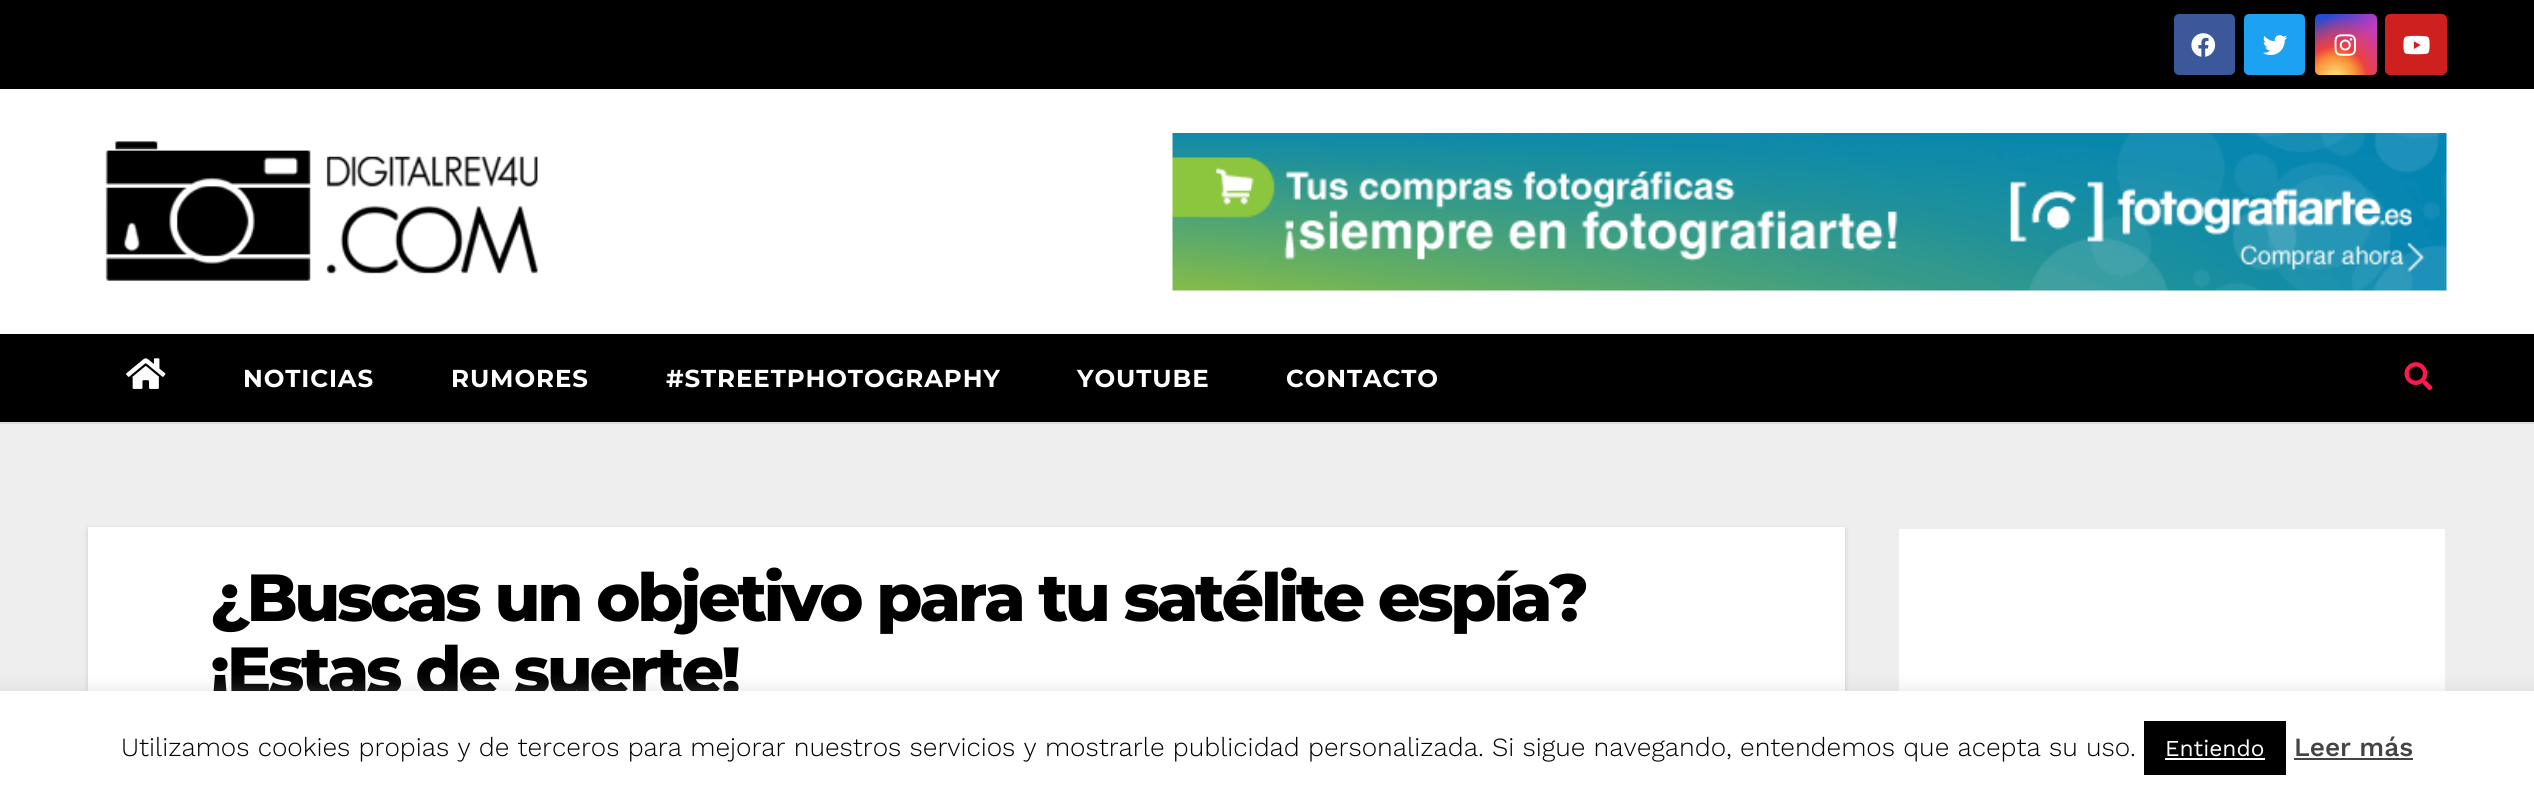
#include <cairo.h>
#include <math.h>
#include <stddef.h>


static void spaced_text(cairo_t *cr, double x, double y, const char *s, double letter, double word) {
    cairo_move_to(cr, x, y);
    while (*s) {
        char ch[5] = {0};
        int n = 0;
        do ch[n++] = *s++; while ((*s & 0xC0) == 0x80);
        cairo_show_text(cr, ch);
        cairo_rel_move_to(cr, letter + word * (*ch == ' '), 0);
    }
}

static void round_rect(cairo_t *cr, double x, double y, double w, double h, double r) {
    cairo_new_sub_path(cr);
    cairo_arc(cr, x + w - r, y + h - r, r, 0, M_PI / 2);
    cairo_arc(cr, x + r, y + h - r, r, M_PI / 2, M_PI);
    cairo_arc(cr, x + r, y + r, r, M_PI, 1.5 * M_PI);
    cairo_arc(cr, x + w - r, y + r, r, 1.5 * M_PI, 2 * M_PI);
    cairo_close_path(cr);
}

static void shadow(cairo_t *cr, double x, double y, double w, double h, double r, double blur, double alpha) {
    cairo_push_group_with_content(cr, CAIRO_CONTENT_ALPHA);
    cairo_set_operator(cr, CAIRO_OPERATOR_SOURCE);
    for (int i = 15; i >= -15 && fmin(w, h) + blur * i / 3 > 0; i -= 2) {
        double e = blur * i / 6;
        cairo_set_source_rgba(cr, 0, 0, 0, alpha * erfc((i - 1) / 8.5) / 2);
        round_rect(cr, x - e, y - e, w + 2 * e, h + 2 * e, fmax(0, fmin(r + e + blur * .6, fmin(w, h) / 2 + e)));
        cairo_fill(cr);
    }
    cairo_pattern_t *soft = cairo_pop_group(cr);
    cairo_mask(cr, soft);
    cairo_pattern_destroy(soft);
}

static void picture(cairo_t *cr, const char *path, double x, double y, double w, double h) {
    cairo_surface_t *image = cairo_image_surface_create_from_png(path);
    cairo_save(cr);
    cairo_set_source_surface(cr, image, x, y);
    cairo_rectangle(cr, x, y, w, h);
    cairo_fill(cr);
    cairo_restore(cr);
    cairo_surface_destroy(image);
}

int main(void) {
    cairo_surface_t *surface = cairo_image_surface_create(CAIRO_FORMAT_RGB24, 2534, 795);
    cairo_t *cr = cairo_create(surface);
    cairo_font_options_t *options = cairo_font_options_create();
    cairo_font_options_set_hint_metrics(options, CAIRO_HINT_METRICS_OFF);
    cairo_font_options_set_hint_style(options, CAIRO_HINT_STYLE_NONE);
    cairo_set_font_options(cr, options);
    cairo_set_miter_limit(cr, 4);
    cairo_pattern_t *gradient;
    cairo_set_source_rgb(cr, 0.933, 0.933, 0.933);
    cairo_paint(cr);
    cairo_set_source_rgb(cr, 0, 0, 0);
    cairo_rectangle(cr, 0, 0, 2534, 89);
    cairo_fill(cr);
    cairo_set_source_rgb(cr, 0.231, 0.349, 0.596);
    round_rect(cr, 2174, 14, 61, 61, 5);
    cairo_fill(cr);
    picture(cr, "img1.png", 2191, 33, 25, 24);
    cairo_set_source_rgb(cr, 0.114, 0.631, 0.949);
    round_rect(cr, 2244, 14, 61, 61, 5);
    cairo_fill(cr);
    picture(cr, "img2.png", 2263, 35, 25, 20);
    gradient = cairo_pattern_create_linear(2315, 14, 2377, 75);
    cairo_pattern_add_color_stop_rgba(gradient, 0.12, 0.137, 0.294, 0.843, 1);
    cairo_pattern_add_color_stop_rgba(gradient, 0.58, 0.765, 0.235, 0.745, 1);
    cairo_set_source(cr, gradient);
    cairo_pattern_destroy(gradient);
    round_rect(cr, 2315, 14, 62, 61, 5);
    cairo_fill(cr);
    gradient = cairo_pattern_create_radial(2335, 79, 0, 2335, 79, 77);
    cairo_pattern_add_color_stop_rgba(gradient, 0, 1, 0.882, 0.49, 1);
    cairo_pattern_add_color_stop_rgba(gradient, 0.1, 1, 0.804, 0.412, 1);
    cairo_pattern_add_color_stop_rgba(gradient, 0.28, 0.98, 0.569, 0.216, 1);
    cairo_pattern_add_color_stop_rgba(gradient, 0.42, 0.922, 0.255, 0.255, 1);
    cairo_pattern_add_color_stop_rgba(gradient, 0.82, 0.922, 0.255, 0.255, 0);
    cairo_set_source(cr, gradient);
    cairo_pattern_destroy(gradient);
    round_rect(cr, 2315, 14, 62, 61, 5);
    cairo_fill(cr);
    picture(cr, "img3.png", 2334, 34, 22, 22);
    cairo_set_source_rgb(cr, 0.804, 0.125, 0.122);
    round_rect(cr, 2385, 14, 62, 61, 5);
    cairo_fill(cr);
    picture(cr, "img4.png", 2403, 35, 27, 20);
    cairo_set_source_rgb(cr, 1, 1, 1);
    cairo_rectangle(cr, 0, 89, 2534, 245);
    cairo_fill(cr);
    picture(cr, "img5.png", 105, 141, 433, 140);
    picture(cr, "img6.png", 1172, 133, 1275, 158);
    cairo_set_source_rgb(cr, 0.867, 0.867, 0.867);
    cairo_rectangle(cr, 0, 422, 2534, 2);
    cairo_fill(cr);
    cairo_set_source_rgb(cr, 0, 0, 0);
    cairo_rectangle(cr, 0, 334, 2534, 88);
    cairo_fill(cr);
    picture(cr, "img7.png", 126, 358, 40, 31);
    cairo_select_font_face(cr, "Montserrat", CAIRO_FONT_SLANT_NORMAL, CAIRO_FONT_WEIGHT_BOLD);
    cairo_set_font_size(cr, 24.5);
    cairo_set_source_rgb(cr, 1, 1, 1);
    spaced_text(cr, 243, 387, "NOTICIAS", 0.9, 0);
    spaced_text(cr, 451, 387, "RUMORES", 0.9, 0);
    spaced_text(cr, 666, 387, "#STREETPHOTOGRAPHY", 0.9, 0);
    spaced_text(cr, 1077, 387, "YOUTUBE", 0.9, 0);
    spaced_text(cr, 1286, 387, "CONTACTO", 0.9, 0);
    picture(cr, "img8.png", 2404, 362, 29, 29);
    cairo_set_source_rgb(cr, 0, 0, 0);
    shadow(cr, 88, 529, 1757, 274, 0, 2.5, 0.15);
    cairo_set_source_rgb(cr, 1, 1, 1);
    cairo_rectangle(cr, 88, 527, 1757, 164);
    cairo_fill(cr);
    cairo_select_font_face(cr, "Montserrat ExtraBold", CAIRO_FONT_SLANT_NORMAL, CAIRO_FONT_WEIGHT_NORMAL);
    cairo_set_font_size(cr, 66.5);
    cairo_set_source_rgb(cr, 0, 0, 0);
    spaced_text(cr, 210, 621, "¿Buscas un objetivo para tu satélite espía?", -3.3, 0);
    spaced_text(cr, 210, 694, "¡Estas de suerte!", -3.3, 0);
    cairo_set_source_rgb(cr, 1, 1, 1);
    cairo_rectangle(cr, 1899, 529, 546, 162);
    cairo_fill(cr);
    cairo_set_source_rgb(cr, 0.675, 0.671, 0.671);
    shadow(cr, 0, 690, 2534, 105, 0, 9, 0.3);
    cairo_set_source_rgb(cr, 1, 1, 1);
    cairo_rectangle(cr, 0, 691, 2534, 104);
    cairo_fill(cr);
    cairo_select_font_face(cr, "Work Sans Light", CAIRO_FONT_SLANT_NORMAL, CAIRO_FONT_WEIGHT_NORMAL);
    cairo_set_font_size(cr, 26.25);
    cairo_set_source_rgb(cr, 0, 0, 0);
    cairo_move_to(cr, 121, 756);
    cairo_show_text(cr, "Utilizamos cookies propias y de terceros para mejorar nuestros servicios y mostrarle publicidad personalizada. Si sigue navegando, entendemos que acepta su uso.");
    cairo_rectangle(cr, 2144, 721, 142, 54);
    cairo_fill(cr);
    cairo_select_font_face(cr, "Work Sans", CAIRO_FONT_SLANT_NORMAL, CAIRO_FONT_WEIGHT_NORMAL);
    cairo_set_font_size(cr, 22.75);
    cairo_set_source_rgb(cr, 1, 1, 1);
    cairo_move_to(cr, 2165, 756);
    cairo_show_text(cr, "Entiendo");
    cairo_rectangle(cr, 2165, 758, 100, 2);
    cairo_fill(cr);
    cairo_select_font_face(cr, "Work Sans Medium", CAIRO_FONT_SLANT_NORMAL, CAIRO_FONT_WEIGHT_NORMAL);
    cairo_set_font_size(cr, 26.25);
    cairo_set_source_rgb(cr, 0.267, 0.267, 0.267);
    cairo_move_to(cr, 2294, 756);
    cairo_show_text(cr, "Leer más");
    cairo_rectangle(cr, 2294, 758, 119, 2);
    cairo_fill(cr);
    cairo_surface_write_to_png(surface, "page.png");
    cairo_font_options_destroy(options);
    cairo_destroy(cr);
    cairo_surface_destroy(surface);
    return 0;
}
